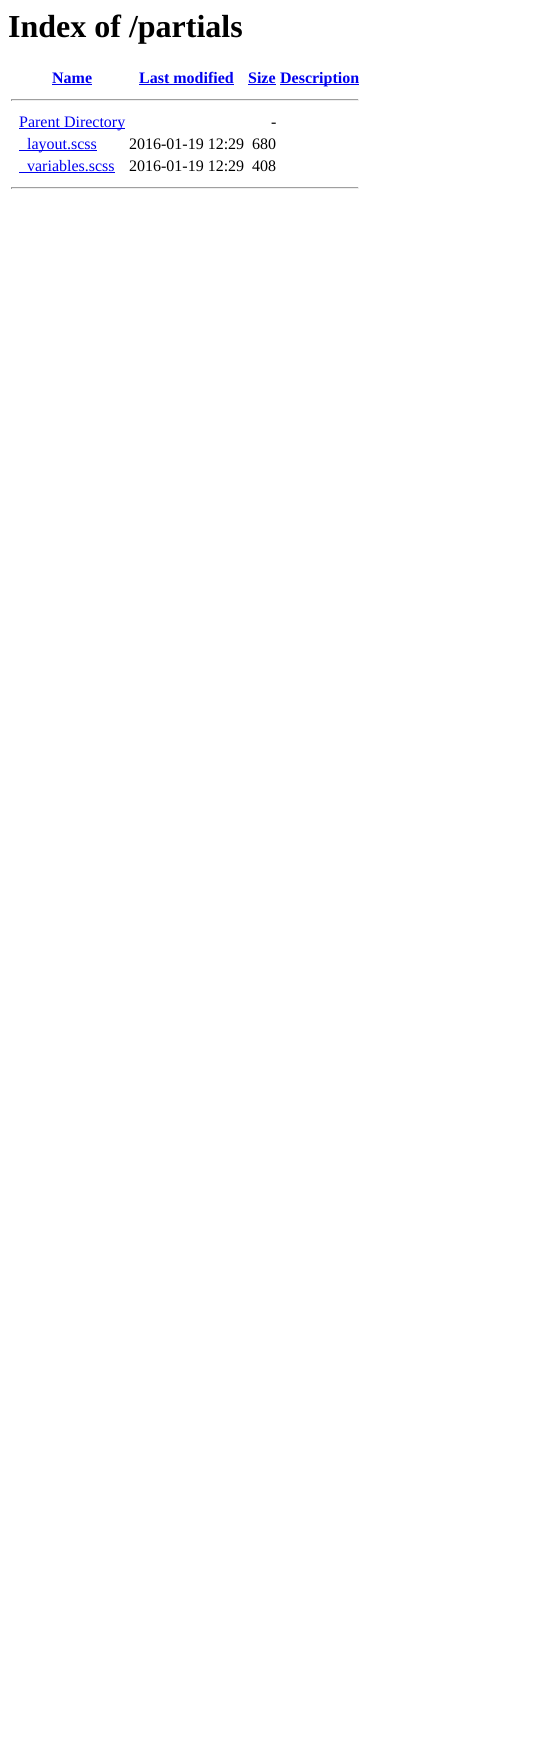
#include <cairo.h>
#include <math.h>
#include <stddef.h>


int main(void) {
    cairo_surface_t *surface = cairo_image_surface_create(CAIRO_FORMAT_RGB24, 559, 1742);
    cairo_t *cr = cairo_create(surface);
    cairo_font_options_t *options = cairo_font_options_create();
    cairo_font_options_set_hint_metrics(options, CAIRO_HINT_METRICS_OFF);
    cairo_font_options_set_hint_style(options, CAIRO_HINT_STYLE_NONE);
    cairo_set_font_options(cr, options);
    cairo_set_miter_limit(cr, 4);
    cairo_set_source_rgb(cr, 1, 1, 1);
    cairo_paint(cr);
    cairo_select_font_face(cr, "Liberation Serif", CAIRO_FONT_SLANT_NORMAL, CAIRO_FONT_WEIGHT_BOLD);
    cairo_set_font_size(cr, 32);
    cairo_set_source_rgb(cr, 0, 0, 0);
    cairo_move_to(cr, 8, 37);
    cairo_show_text(cr, "Index of /partials");
    cairo_set_font_size(cr, 16);
    cairo_set_source_rgb(cr, 0, 0, 0.933);
    cairo_move_to(cr, 52, 83);
    cairo_show_text(cr, "Name");
    cairo_rectangle(cr, 52, 84, 40, 1);
    cairo_fill(cr);
    cairo_move_to(cr, 139, 83);
    cairo_show_text(cr, "Last modified");
    cairo_rectangle(cr, 139, 84, 95, 1);
    cairo_fill(cr);
    cairo_move_to(cr, 248, 83);
    cairo_show_text(cr, "Size");
    cairo_rectangle(cr, 248, 84, 28, 1);
    cairo_fill(cr);
    cairo_rectangle(cr, 280, 84, 79, 1);
    cairo_fill(cr);
    cairo_move_to(cr, 280, 83);
    cairo_show_text(cr, "Description");
    cairo_set_source_rgb(cr, 0.624, 0.624, 0.624);
    cairo_rectangle(cr, 11, 99, 348, 1);
    cairo_fill(cr);
    cairo_set_source_rgb(cr, 0.933, 0.933, 0.933);
    cairo_rectangle(cr, 358, 99, 1, 2);
    cairo_fill(cr);
    cairo_rectangle(cr, 11, 100, 348, 1);
    cairo_fill(cr);
    cairo_set_source_rgb(cr, 0.624, 0.624, 0.624);
    cairo_rectangle(cr, 11, 99, 1, 2);
    cairo_fill(cr);
    cairo_set_source_rgb(cr, 0, 0, 0.933);
    cairo_rectangle(cr, 19, 128, 106, 1);
    cairo_fill(cr);
    cairo_select_font_face(cr, "Liberation Serif", CAIRO_FONT_SLANT_NORMAL, CAIRO_FONT_WEIGHT_NORMAL);
    cairo_move_to(cr, 19, 127);
    cairo_show_text(cr, "Parent Directory");
    cairo_set_source_rgb(cr, 0, 0, 0);
    cairo_move_to(cr, 271, 127);
    cairo_show_text(cr, "-");
    cairo_set_source_rgb(cr, 0, 0, 0.933);
    cairo_rectangle(cr, 19, 150, 78, 1);
    cairo_fill(cr);
    cairo_move_to(cr, 27, 149);
    cairo_show_text(cr, "layout.scss");
    cairo_set_source_rgb(cr, 0, 0, 0);
    cairo_move_to(cr, 129, 149);
    cairo_show_text(cr, "2016-01-19 12:29");
    cairo_move_to(cr, 252, 149);
    cairo_show_text(cr, "680");
    cairo_set_source_rgb(cr, 0, 0, 0.933);
    cairo_move_to(cr, 27, 171);
    cairo_show_text(cr, "variables.scss");
    cairo_rectangle(cr, 19, 172, 96, 1);
    cairo_fill(cr);
    cairo_set_source_rgb(cr, 0, 0, 0);
    cairo_move_to(cr, 129, 171);
    cairo_show_text(cr, "2016-01-19 12:29");
    cairo_move_to(cr, 252, 171);
    cairo_show_text(cr, "408");
    cairo_set_source_rgb(cr, 0.624, 0.624, 0.624);
    cairo_rectangle(cr, 11, 187, 348, 1);
    cairo_fill(cr);
    cairo_set_source_rgb(cr, 0.933, 0.933, 0.933);
    cairo_rectangle(cr, 358, 187, 1, 2);
    cairo_fill(cr);
    cairo_rectangle(cr, 11, 188, 348, 1);
    cairo_fill(cr);
    cairo_set_source_rgb(cr, 0.624, 0.624, 0.624);
    cairo_rectangle(cr, 11, 187, 1, 2);
    cairo_fill(cr);
    cairo_surface_write_to_png(surface, "page.png");
    cairo_font_options_destroy(options);
    cairo_destroy(cr);
    cairo_surface_destroy(surface);
    return 0;
}
